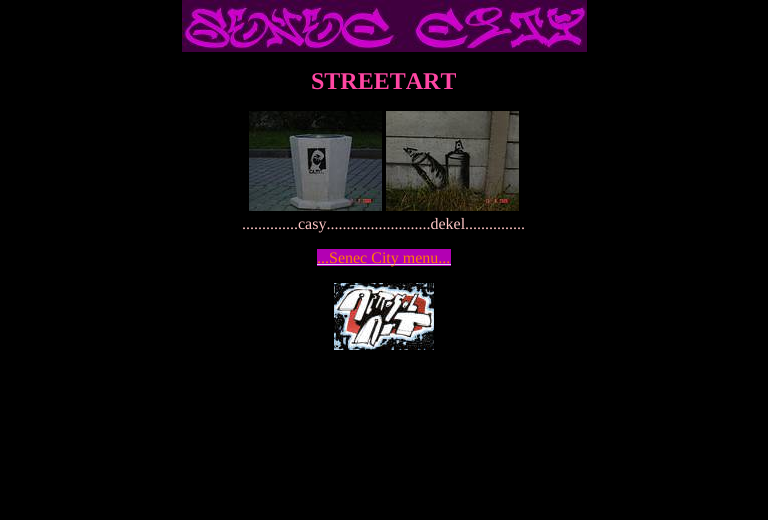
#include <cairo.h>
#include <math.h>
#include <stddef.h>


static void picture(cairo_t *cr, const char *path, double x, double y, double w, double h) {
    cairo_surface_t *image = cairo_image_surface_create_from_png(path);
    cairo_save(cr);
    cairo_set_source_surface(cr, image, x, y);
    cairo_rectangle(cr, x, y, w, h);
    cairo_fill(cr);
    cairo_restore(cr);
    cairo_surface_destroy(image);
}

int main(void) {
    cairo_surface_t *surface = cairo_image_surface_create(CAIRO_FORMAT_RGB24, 768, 520);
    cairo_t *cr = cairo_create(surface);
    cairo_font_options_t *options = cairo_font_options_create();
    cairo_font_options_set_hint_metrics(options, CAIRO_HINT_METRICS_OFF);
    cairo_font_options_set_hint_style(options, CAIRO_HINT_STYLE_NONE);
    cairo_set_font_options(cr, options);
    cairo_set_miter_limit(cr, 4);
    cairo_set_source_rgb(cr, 0, 0, 0);
    cairo_paint(cr);
    picture(cr, "img1.png", 182, 0, 405, 52);
    cairo_select_font_face(cr, "Liberation Serif", CAIRO_FONT_SLANT_NORMAL, CAIRO_FONT_WEIGHT_BOLD);
    cairo_set_font_size(cr, 24);
    cairo_set_source_rgb(cr, 1, 0.275, 0.639);
    cairo_move_to(cr, 311, 89);
    cairo_show_text(cr, "STREETART");
    picture(cr, "img2.png", 249, 111, 133, 100);
    picture(cr, "img3.png", 386, 111, 133, 100);
    cairo_select_font_face(cr, "Liberation Serif", CAIRO_FONT_SLANT_NORMAL, CAIRO_FONT_WEIGHT_NORMAL);
    cairo_set_font_size(cr, 16);
    cairo_set_source_rgb(cr, 1, 0.776, 0.776);
    cairo_move_to(cr, 242, 229);
    cairo_show_text(cr, "..............casy..........................dekel...............");
    cairo_set_source_rgb(cr, 0.702, 0, 0.702);
    cairo_rectangle(cr, 317, 249, 134, 17);
    cairo_fill(cr);
    cairo_set_source_rgb(cr, 0.867, 0.867, 1);
    cairo_rectangle(cr, 317, 264, 134, 1);
    cairo_fill(cr);
    cairo_set_source_rgb(cr, 1, 0.502, 0);
    cairo_move_to(cr, 317, 263);
    cairo_show_text(cr, "...Senec City menu...");
    picture(cr, "img4.png", 334, 283, 100, 67);
    cairo_surface_write_to_png(surface, "page.png");
    cairo_font_options_destroy(options);
    cairo_destroy(cr);
    cairo_surface_destroy(surface);
    return 0;
}
